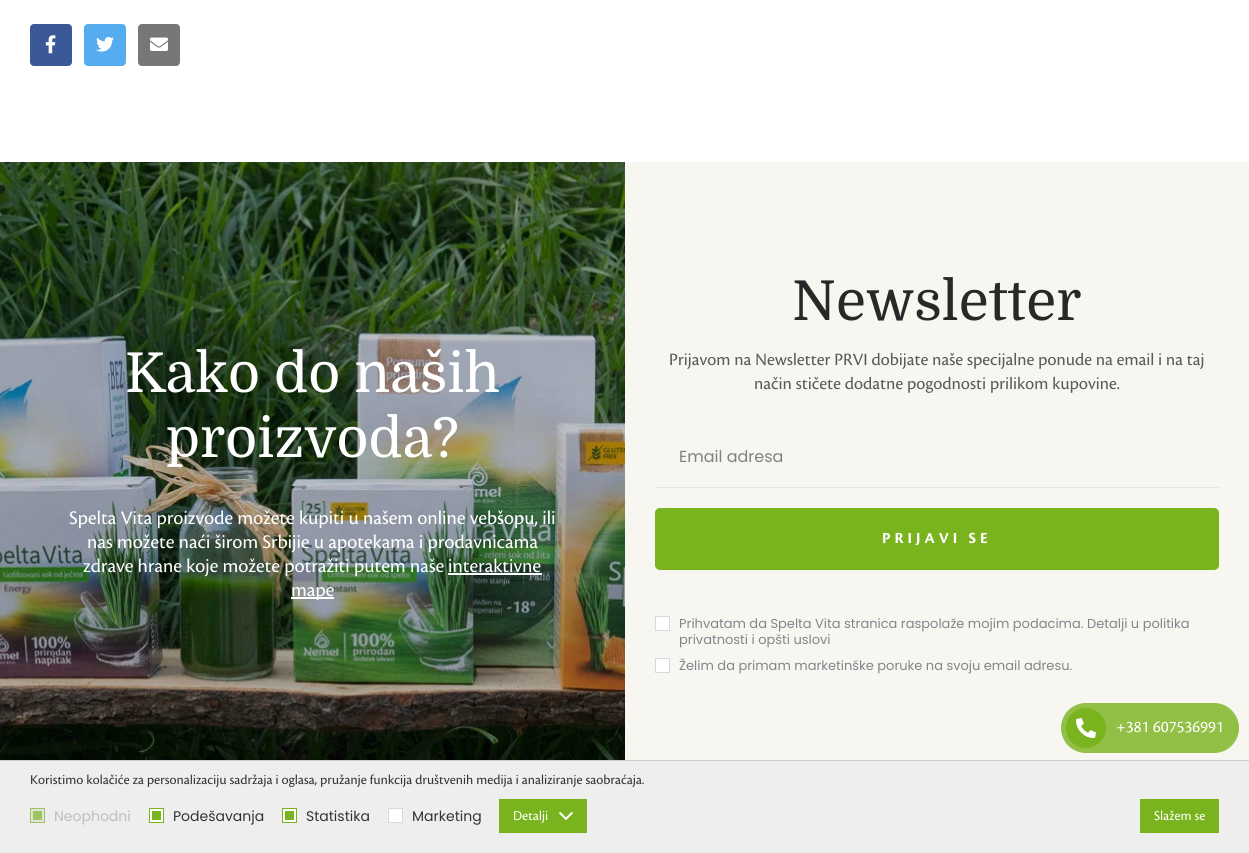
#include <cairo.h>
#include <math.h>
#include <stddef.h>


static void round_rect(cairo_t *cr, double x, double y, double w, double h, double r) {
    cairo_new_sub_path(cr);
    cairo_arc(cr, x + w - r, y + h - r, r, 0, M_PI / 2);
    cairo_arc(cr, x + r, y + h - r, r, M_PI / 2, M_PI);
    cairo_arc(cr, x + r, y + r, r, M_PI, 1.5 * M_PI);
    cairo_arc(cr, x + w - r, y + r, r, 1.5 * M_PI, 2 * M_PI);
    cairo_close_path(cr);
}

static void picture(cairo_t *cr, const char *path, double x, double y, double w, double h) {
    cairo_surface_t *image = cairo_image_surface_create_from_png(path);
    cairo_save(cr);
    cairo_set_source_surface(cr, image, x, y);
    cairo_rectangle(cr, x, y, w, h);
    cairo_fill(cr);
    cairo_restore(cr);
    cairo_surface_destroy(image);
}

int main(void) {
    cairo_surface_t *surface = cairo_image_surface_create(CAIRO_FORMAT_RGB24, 1249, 853);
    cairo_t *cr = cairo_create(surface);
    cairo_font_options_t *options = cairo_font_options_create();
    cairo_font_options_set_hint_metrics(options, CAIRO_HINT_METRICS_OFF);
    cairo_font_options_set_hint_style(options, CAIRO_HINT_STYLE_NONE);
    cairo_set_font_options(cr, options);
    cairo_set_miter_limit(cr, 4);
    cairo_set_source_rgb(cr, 1, 1, 1);
    cairo_paint(cr);
    cairo_set_source_rgb(cr, 0.231, 0.349, 0.596);
    round_rect(cr, 30, 24, 42, 42, 4);
    cairo_fill(cr);
    picture(cr, "img1.png", 45, 35, 11, 19);
    cairo_set_source_rgb(cr, 0.333, 0.675, 0.933);
    round_rect(cr, 84, 24, 42, 42, 4);
    cairo_fill(cr);
    picture(cr, "img2.png", 96, 36, 18, 16);
    cairo_set_source_rgb(cr, 0.467, 0.467, 0.467);
    round_rect(cr, 138, 24, 42, 42, 4);
    cairo_fill(cr);
    picture(cr, "img3.png", 150, 37, 18, 14);
    cairo_set_source_rgb(cr, 0.965, 0.961, 0.945);
    cairo_rectangle(cr, 625, 162, 624, 598);
    cairo_fill(cr);
    picture(cr, "img4.png", 0, 162, 625, 598);
    cairo_select_font_face(cr, "Domine", CAIRO_FONT_SLANT_NORMAL, CAIRO_FONT_WEIGHT_NORMAL);
    cairo_set_font_size(cr, 55);
    cairo_set_source_rgb(cr, 1, 1, 1);
    cairo_move_to(cr, 125, 392);
    cairo_show_text(cr, "Kako do naših");
    cairo_move_to(cr, 166, 457);
    cairo_show_text(cr, "proizvoda?");
    picture(cr, "img5.png", 69, 510, 486, 19);
    picture(cr, "img6.png", 88, 534, 450, 19);
    picture(cr, "img7.png", 83, 558, 361, 19);
    picture(cr, "img8.png", 449, 558, 92, 15);
    cairo_rectangle(cr, 448, 573, 94, 2);
    cairo_fill(cr);
    cairo_rectangle(cr, 291, 597, 43, 2);
    cairo_fill(cr);
    picture(cr, "img9.png", 292, 587, 42, 14);
    cairo_set_source_rgb(cr, 0.157, 0.157, 0.157);
    cairo_move_to(cr, 792, 320);
    cairo_show_text(cr, "Newsletter");
    picture(cr, "img10.png", 670, 352, 534, 17);
    picture(cr, "img11.png", 755, 376, 365, 17);
    cairo_select_font_face(cr, "Poppins", CAIRO_FONT_SLANT_NORMAL, CAIRO_FONT_WEIGHT_NORMAL);
    cairo_set_font_size(cr, 16);
    cairo_set_source_rgb(cr, 0.502, 0.502, 0.502);
    cairo_move_to(cr, 679, 462);
    cairo_show_text(cr, "Email adresa");
    cairo_set_source_rgb(cr, 0.898, 0.898, 0.898);
    cairo_rectangle(cr, 655, 487, 564, 1);
    cairo_fill(cr);
    cairo_set_source_rgb(cr, 0.475, 0.702, 0.114);
    round_rect(cr, 655, 508, 564, 62, 5);
    cairo_fill(cr);
    picture(cr, "img12.png", 883, 532, 105, 14);
    cairo_set_source_rgb(cr, 1, 1, 1);
    cairo_rectangle(cr, 655.5, 616.5, 14, 14);
    cairo_fill_preserve(cr);
    cairo_set_source_rgb(cr, 0.851, 0.851, 0.851);
    cairo_set_line_width(cr, 1);
    cairo_stroke(cr);
    cairo_set_font_size(cr, 13);
    cairo_set_source_rgb(cr, 0.502, 0.525, 0.545);
    cairo_move_to(cr, 679, 628);
    cairo_show_text(cr, "Prihvatam da Spelta Vita stranica raspolaže mojim podacima. Detalji u politika");
    cairo_move_to(cr, 679, 644);
    cairo_show_text(cr, "privatnosti i opšti uslovi");
    cairo_set_source_rgb(cr, 1, 1, 1);
    cairo_rectangle(cr, 655.5, 658.5, 14, 14);
    cairo_fill_preserve(cr);
    cairo_set_source_rgb(cr, 0.851, 0.851, 0.851);
    cairo_stroke(cr);
    cairo_set_source_rgb(cr, 0.502, 0.525, 0.545);
    cairo_move_to(cr, 679, 670);
    cairo_show_text(cr, "Želim da primam marketinške poruke na svoju email adresu.");
    cairo_set_source_rgb(cr, 0.573, 0.753, 0.278);
    round_rect(cr, 1061, 703, 178, 50, 25);
    cairo_fill(cr);
    cairo_set_source_rgb(cr, 0.475, 0.702, 0.114);
    cairo_arc(cr, 1086, 728, 20, 0, 2 * M_PI);
    cairo_fill(cr);
    picture(cr, "img13.png", 1076, 718, 20, 20);
    picture(cr, "img14.png", 1117, 721, 105, 12);
    cairo_set_source_rgb(cr, 0.933, 0.933, 0.933);
    cairo_rectangle(cr, 0, 761, 1249, 92);
    cairo_fill(cr);
    cairo_set_source_rgb(cr, 0.8, 0.8, 0.8);
    cairo_rectangle(cr, 0, 760, 1249, 1);
    cairo_fill(cr);
    picture(cr, "img15.png", 31, 774, 613, 13);
    cairo_set_source_rgb(cr, 0.886, 0.886, 0.886);
    cairo_rectangle(cr, 30.5, 808.5, 14, 14);
    cairo_fill_preserve(cr);
    cairo_set_source_rgb(cr, 0.612, 0.773, 0.361);
    cairo_stroke(cr);
    cairo_set_font_size(cr, 14);
    cairo_set_source_rgb(cr, 0.745, 0.745, 0.745);
    cairo_move_to(cr, 54, 821);
    cairo_show_text(cr, "Neophodni");
    cairo_set_source_rgb(cr, 0.612, 0.773, 0.361);
    cairo_rectangle(cr, 33, 811, 9, 9);
    cairo_fill(cr);
    cairo_set_source_rgb(cr, 1, 1, 1);
    cairo_rectangle(cr, 149.5, 808.5, 14, 14);
    cairo_fill_preserve(cr);
    cairo_set_source_rgb(cr, 0.475, 0.702, 0.114);
    cairo_stroke(cr);
    cairo_set_source_rgb(cr, 0.2, 0.2, 0.2);
    cairo_move_to(cr, 173, 821);
    cairo_show_text(cr, "Podešavanja");
    cairo_set_source_rgb(cr, 0.475, 0.702, 0.114);
    cairo_rectangle(cr, 152, 811, 9, 9);
    cairo_fill(cr);
    cairo_set_source_rgb(cr, 1, 1, 1);
    cairo_rectangle(cr, 282.5, 808.5, 14, 14);
    cairo_fill_preserve(cr);
    cairo_set_source_rgb(cr, 0.475, 0.702, 0.114);
    cairo_stroke(cr);
    cairo_set_source_rgb(cr, 0.2, 0.2, 0.2);
    cairo_move_to(cr, 306, 821);
    cairo_show_text(cr, "Statistika");
    cairo_set_source_rgb(cr, 0.475, 0.702, 0.114);
    cairo_rectangle(cr, 285, 811, 9, 9);
    cairo_fill(cr);
    cairo_set_source_rgb(cr, 1, 1, 1);
    cairo_rectangle(cr, 388.5, 808.5, 14, 14);
    cairo_fill_preserve(cr);
    cairo_set_source_rgb(cr, 0.851, 0.851, 0.851);
    cairo_stroke(cr);
    cairo_set_source_rgb(cr, 0.2, 0.2, 0.2);
    cairo_move_to(cr, 412, 821);
    cairo_show_text(cr, "Marketing");
    cairo_set_source_rgb(cr, 0.475, 0.702, 0.114);
    cairo_rectangle(cr, 499, 799, 88, 34);
    cairo_fill(cr);
    picture(cr, "img16.png", 514, 810, 34, 13);
    picture(cr, "img17.png", 559, 812, 14, 8);
    cairo_rectangle(cr, 1140, 799, 79, 34);
    cairo_fill(cr);
    picture(cr, "img18.png", 1154, 810, 51, 11);
    cairo_surface_write_to_png(surface, "page.png");
    cairo_font_options_destroy(options);
    cairo_destroy(cr);
    cairo_surface_destroy(surface);
    return 0;
}
